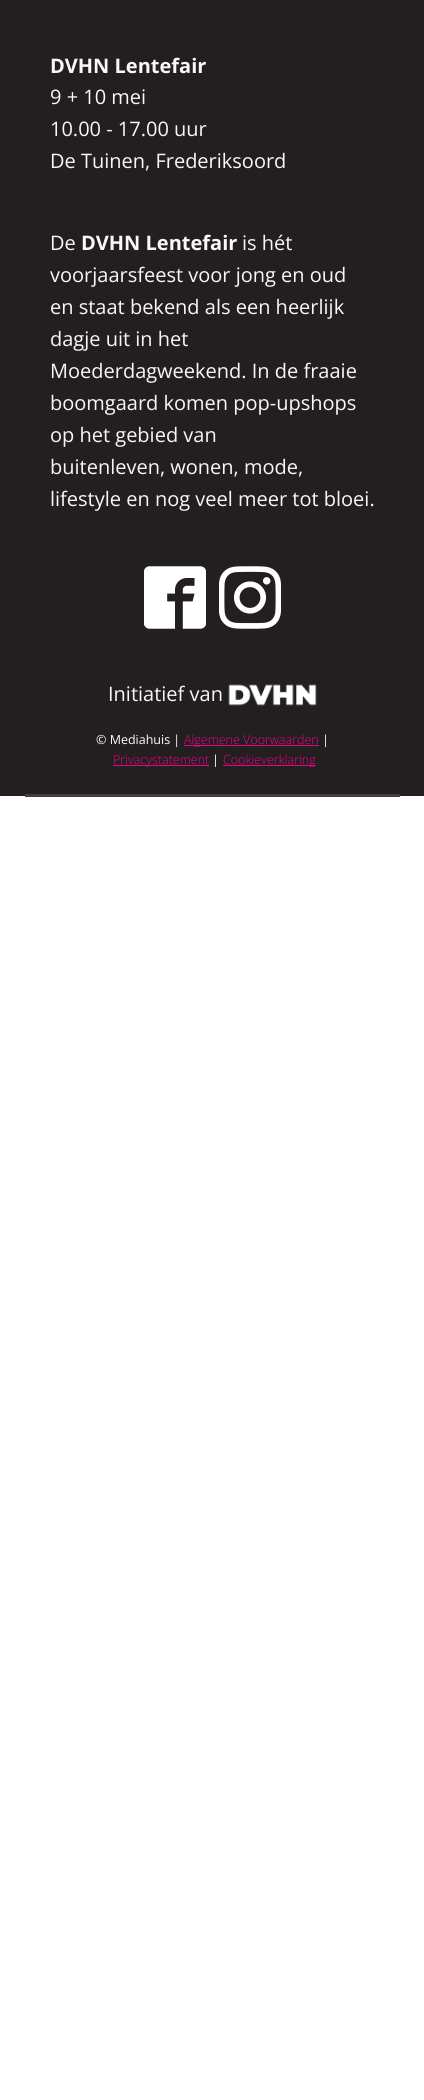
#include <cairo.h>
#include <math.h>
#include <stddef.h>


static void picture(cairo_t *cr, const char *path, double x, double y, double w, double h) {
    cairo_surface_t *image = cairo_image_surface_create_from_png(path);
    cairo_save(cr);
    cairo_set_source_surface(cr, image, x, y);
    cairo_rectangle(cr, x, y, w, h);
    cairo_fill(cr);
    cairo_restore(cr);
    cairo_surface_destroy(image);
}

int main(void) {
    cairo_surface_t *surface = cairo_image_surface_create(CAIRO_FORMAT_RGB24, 424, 2100);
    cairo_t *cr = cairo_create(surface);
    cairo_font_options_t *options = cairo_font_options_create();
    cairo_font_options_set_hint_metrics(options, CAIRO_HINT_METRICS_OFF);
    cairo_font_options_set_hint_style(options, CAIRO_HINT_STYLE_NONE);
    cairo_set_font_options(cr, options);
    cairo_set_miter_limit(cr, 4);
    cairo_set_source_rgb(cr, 1, 1, 1);
    cairo_paint(cr);
    cairo_set_source_rgb(cr, 0.137, 0.122, 0.125);
    cairo_rectangle(cr, 0, 0, 424, 796);
    cairo_fill(cr);
    cairo_select_font_face(cr, "Open Sans", CAIRO_FONT_SLANT_NORMAL, CAIRO_FONT_WEIGHT_BOLD);
    cairo_set_font_size(cr, 20);
    cairo_set_source_rgb(cr, 0.969, 0.969, 0.969);
    cairo_move_to(cr, 50, 73);
    cairo_show_text(cr, "DVHN Lentefair");
    cairo_select_font_face(cr, "Open Sans", CAIRO_FONT_SLANT_NORMAL, CAIRO_FONT_WEIGHT_NORMAL);
    cairo_move_to(cr, 50, 104);
    cairo_show_text(cr, "9 + 10 mei");
    cairo_move_to(cr, 50, 136);
    cairo_show_text(cr, "10.00 - 17.00 uur");
    cairo_move_to(cr, 50, 168);
    cairo_show_text(cr, "De Tuinen, Frederiksoord");
    cairo_move_to(cr, 50, 250);
    cairo_show_text(cr, "De");
    cairo_select_font_face(cr, "Open Sans", CAIRO_FONT_SLANT_NORMAL, CAIRO_FONT_WEIGHT_BOLD);
    cairo_move_to(cr, 81, 250);
    cairo_show_text(cr, "DVHN Lentefair");
    cairo_select_font_face(cr, "Open Sans", CAIRO_FONT_SLANT_NORMAL, CAIRO_FONT_WEIGHT_NORMAL);
    cairo_move_to(cr, 242, 250);
    cairo_show_text(cr, "is hét");
    cairo_move_to(cr, 50, 282);
    cairo_show_text(cr, "voorjaarsfeest voor jong en oud");
    cairo_move_to(cr, 50, 314);
    cairo_show_text(cr, "en staat bekend als een heerlijk");
    cairo_move_to(cr, 50, 346);
    cairo_show_text(cr, "dagje uit in het");
    cairo_move_to(cr, 50, 378);
    cairo_show_text(cr, "Moederdagweekend. In de fraaie");
    cairo_move_to(cr, 50, 410);
    cairo_show_text(cr, "boomgaard komen pop-upshops");
    cairo_move_to(cr, 50, 442);
    cairo_show_text(cr, "op het gebied van");
    cairo_move_to(cr, 50, 474);
    cairo_show_text(cr, "buitenleven, wonen, mode,");
    cairo_move_to(cr, 50, 506);
    cairo_show_text(cr, "lifestyle en nog veel meer tot bloei.");
    picture(cr, "img1.png", 144, 566, 62, 63);
    picture(cr, "img2.png", 219, 566, 62, 63);
    cairo_set_source_rgb(cr, 0.251, 0.251, 0.251);
    cairo_rectangle(cr, 25, 794, 375, 3);
    cairo_fill(cr);
    cairo_set_source_rgb(cr, 0.969, 0.969, 0.969);
    cairo_move_to(cr, 108, 701);
    cairo_show_text(cr, "Initiatief van");
    picture(cr, "img3.png", 228, 684, 89, 22);
    cairo_set_font_size(cr, 12.5);
    cairo_set_source_rgb(cr, 1, 1, 1);
    cairo_move_to(cr, 96, 744);
    cairo_show_text(cr, "© Mediahuis |");
    cairo_set_source_rgb(cr, 0.925, 0.004, 0.549);
    cairo_rectangle(cr, 184, 745, 135, 1);
    cairo_fill(cr);
    cairo_select_font_face(cr, "Open Sans Light", CAIRO_FONT_SLANT_NORMAL, CAIRO_FONT_WEIGHT_NORMAL);
    cairo_move_to(cr, 184, 744);
    cairo_show_text(cr, "Algemene Voorwaarden");
    cairo_select_font_face(cr, "Open Sans", CAIRO_FONT_SLANT_NORMAL, CAIRO_FONT_WEIGHT_NORMAL);
    cairo_set_source_rgb(cr, 1, 1, 1);
    cairo_move_to(cr, 322, 744);
    cairo_show_text(cr, "|");
    cairo_set_source_rgb(cr, 0.925, 0.004, 0.549);
    cairo_rectangle(cr, 113, 765, 96, 1);
    cairo_fill(cr);
    cairo_select_font_face(cr, "Open Sans Light", CAIRO_FONT_SLANT_NORMAL, CAIRO_FONT_WEIGHT_NORMAL);
    cairo_move_to(cr, 113, 764);
    cairo_show_text(cr, "Privacystatement");
    cairo_select_font_face(cr, "Open Sans", CAIRO_FONT_SLANT_NORMAL, CAIRO_FONT_WEIGHT_NORMAL);
    cairo_set_source_rgb(cr, 1, 1, 1);
    cairo_move_to(cr, 212, 764);
    cairo_show_text(cr, "|");
    cairo_set_source_rgb(cr, 0.925, 0.004, 0.549);
    cairo_rectangle(cr, 223, 765, 92, 1);
    cairo_fill(cr);
    cairo_select_font_face(cr, "Open Sans Light", CAIRO_FONT_SLANT_NORMAL, CAIRO_FONT_WEIGHT_NORMAL);
    cairo_move_to(cr, 223, 764);
    cairo_show_text(cr, "Cookieverklaring");
    cairo_surface_write_to_png(surface, "page.png");
    cairo_font_options_destroy(options);
    cairo_destroy(cr);
    cairo_surface_destroy(surface);
    return 0;
}
